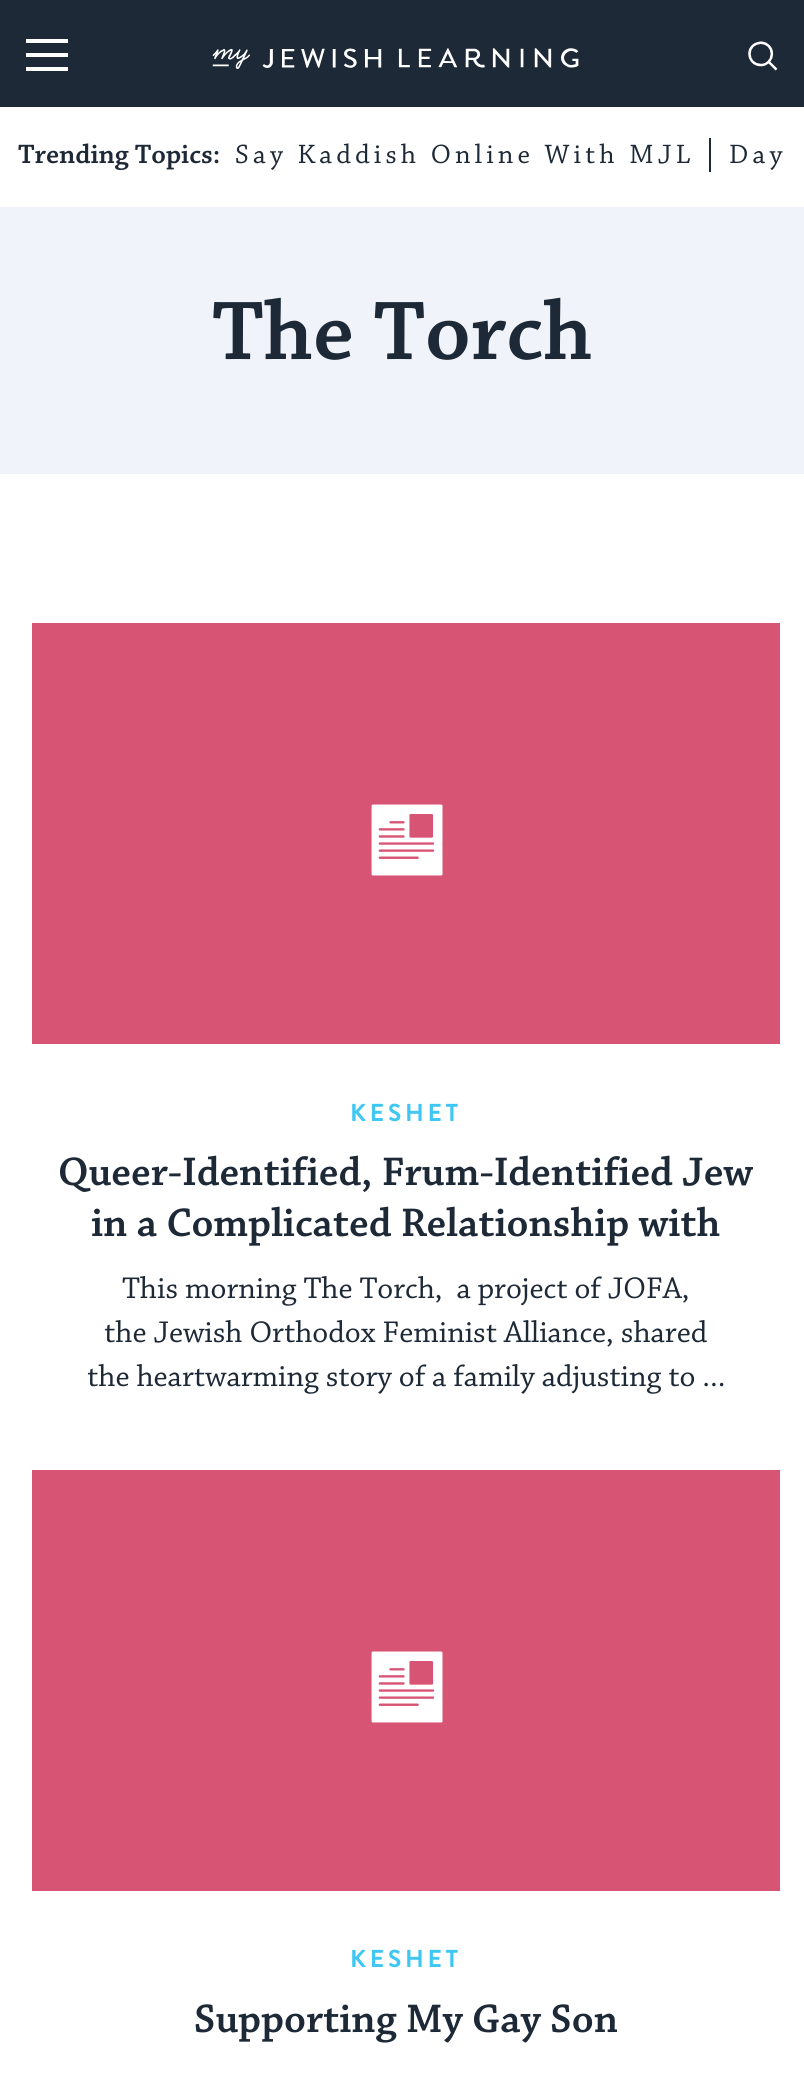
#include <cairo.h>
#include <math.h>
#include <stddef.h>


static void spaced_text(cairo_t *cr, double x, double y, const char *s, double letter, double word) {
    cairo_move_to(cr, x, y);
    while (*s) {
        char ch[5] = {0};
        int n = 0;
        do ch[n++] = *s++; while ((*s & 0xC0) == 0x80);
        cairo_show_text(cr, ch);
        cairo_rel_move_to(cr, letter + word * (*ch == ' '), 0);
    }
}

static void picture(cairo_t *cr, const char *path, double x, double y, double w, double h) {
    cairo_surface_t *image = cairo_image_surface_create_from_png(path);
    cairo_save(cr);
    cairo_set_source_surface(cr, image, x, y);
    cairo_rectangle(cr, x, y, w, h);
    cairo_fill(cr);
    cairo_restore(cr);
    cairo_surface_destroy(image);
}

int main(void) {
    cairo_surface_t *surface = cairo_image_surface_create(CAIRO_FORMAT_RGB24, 804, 2079);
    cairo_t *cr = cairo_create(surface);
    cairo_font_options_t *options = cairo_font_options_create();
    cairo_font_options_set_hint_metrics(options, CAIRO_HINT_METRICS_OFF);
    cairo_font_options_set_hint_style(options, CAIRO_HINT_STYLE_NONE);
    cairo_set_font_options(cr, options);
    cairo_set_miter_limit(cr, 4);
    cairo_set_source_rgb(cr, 1, 1, 1);
    cairo_paint(cr);
    cairo_set_source_rgb(cr, 0.114, 0.161, 0.212);
    cairo_rectangle(cr, 0, 0, 804, 107);
    cairo_fill(cr);
    cairo_set_source_rgb(cr, 1, 1, 1);
    cairo_rectangle(cr, 26, 67, 42, 4);
    cairo_fill(cr);
    cairo_rectangle(cr, 26, 39, 42, 4);
    cairo_fill(cr);
    cairo_rectangle(cr, 26, 53, 42, 4);
    cairo_fill(cr);
    picture(cr, "img1.png", 212, 48, 367, 21);
    picture(cr, "img2.png", 748, 41, 30, 30);
    cairo_select_font_face(cr, "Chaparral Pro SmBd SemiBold", CAIRO_FONT_SLANT_NORMAL, CAIRO_FONT_WEIGHT_NORMAL);
    cairo_set_font_size(cr, 28);
    cairo_set_source_rgb(cr, 0.114, 0.161, 0.212);
    cairo_move_to(cr, 18, 163);
    cairo_show_text(cr, "Trending Topics:");
    cairo_select_font_face(cr, "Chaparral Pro", CAIRO_FONT_SLANT_NORMAL, CAIRO_FONT_WEIGHT_NORMAL);
    spaced_text(cr, 235, 163, "Say Kaddish Online With MJL", 4.2, 0);
    cairo_rectangle(cr, 709, 138, 2, 34);
    cairo_fill(cr);
    spaced_text(cr, 729, 163, "Day", 4.2, 0);
    cairo_set_source_rgb(cr, 0.941, 0.953, 0.973);
    cairo_rectangle(cr, 0, 207, 804, 267);
    cairo_fill(cr);
    cairo_select_font_face(cr, "Chaparral Pro SmBd SemiBold", CAIRO_FONT_SLANT_NORMAL, CAIRO_FONT_WEIGHT_NORMAL);
    cairo_set_font_size(cr, 87.5);
    cairo_set_source_rgb(cr, 0.114, 0.161, 0.212);
    cairo_move_to(cr, 212, 359);
    cairo_show_text(cr, "The Torch");
    picture(cr, "img3.png", 32, 623, 748, 421);
    cairo_select_font_face(cr, "Brandon Grotesque", CAIRO_FONT_SLANT_NORMAL, CAIRO_FONT_WEIGHT_BOLD);
    cairo_set_font_size(cr, 24.5);
    cairo_set_source_rgb(cr, 0.247, 0.776, 0.953);
    spaced_text(cr, 350, 1121, "KESHET", 3.75, 0);
    cairo_select_font_face(cr, "Chaparral Pro SmBd SemiBold", CAIRO_FONT_SLANT_NORMAL, CAIRO_FONT_WEIGHT_NORMAL);
    cairo_set_font_size(cr, 42);
    cairo_set_source_rgb(cr, 0.114, 0.161, 0.212);
    cairo_move_to(cr, 58, 1185);
    cairo_show_text(cr, "Queer-Identified, Frum-Identified Jew");
    cairo_move_to(cr, 91, 1236);
    cairo_show_text(cr, "in a Complicated Relationship with");
    cairo_select_font_face(cr, "Chaparral Pro", CAIRO_FONT_SLANT_NORMAL, CAIRO_FONT_WEIGHT_NORMAL);
    cairo_set_font_size(cr, 31.5);
    cairo_move_to(cr, 122, 1298);
    cairo_show_text(cr, "This morning The Torch,  a project of JOFA,");
    cairo_move_to(cr, 104, 1342);
    cairo_show_text(cr, "the Jewish Orthodox Feminist Alliance, shared");
    cairo_move_to(cr, 87, 1386);
    cairo_show_text(cr, "the heartwarming story of a family adjusting to ...");
    picture(cr, "img3.png", 32, 1470, 748, 421);
    cairo_select_font_face(cr, "Brandon Grotesque", CAIRO_FONT_SLANT_NORMAL, CAIRO_FONT_WEIGHT_BOLD);
    cairo_set_font_size(cr, 24.5);
    cairo_set_source_rgb(cr, 0.247, 0.776, 0.953);
    spaced_text(cr, 350, 1967, "KESHET", 3.75, 0);
    cairo_select_font_face(cr, "Chaparral Pro SmBd SemiBold", CAIRO_FONT_SLANT_NORMAL, CAIRO_FONT_WEIGHT_NORMAL);
    cairo_set_font_size(cr, 42);
    cairo_set_source_rgb(cr, 0.114, 0.161, 0.212);
    cairo_move_to(cr, 194, 2032);
    cairo_show_text(cr, "Supporting My Gay Son");
    cairo_surface_write_to_png(surface, "page.png");
    cairo_font_options_destroy(options);
    cairo_destroy(cr);
    cairo_surface_destroy(surface);
    return 0;
}
